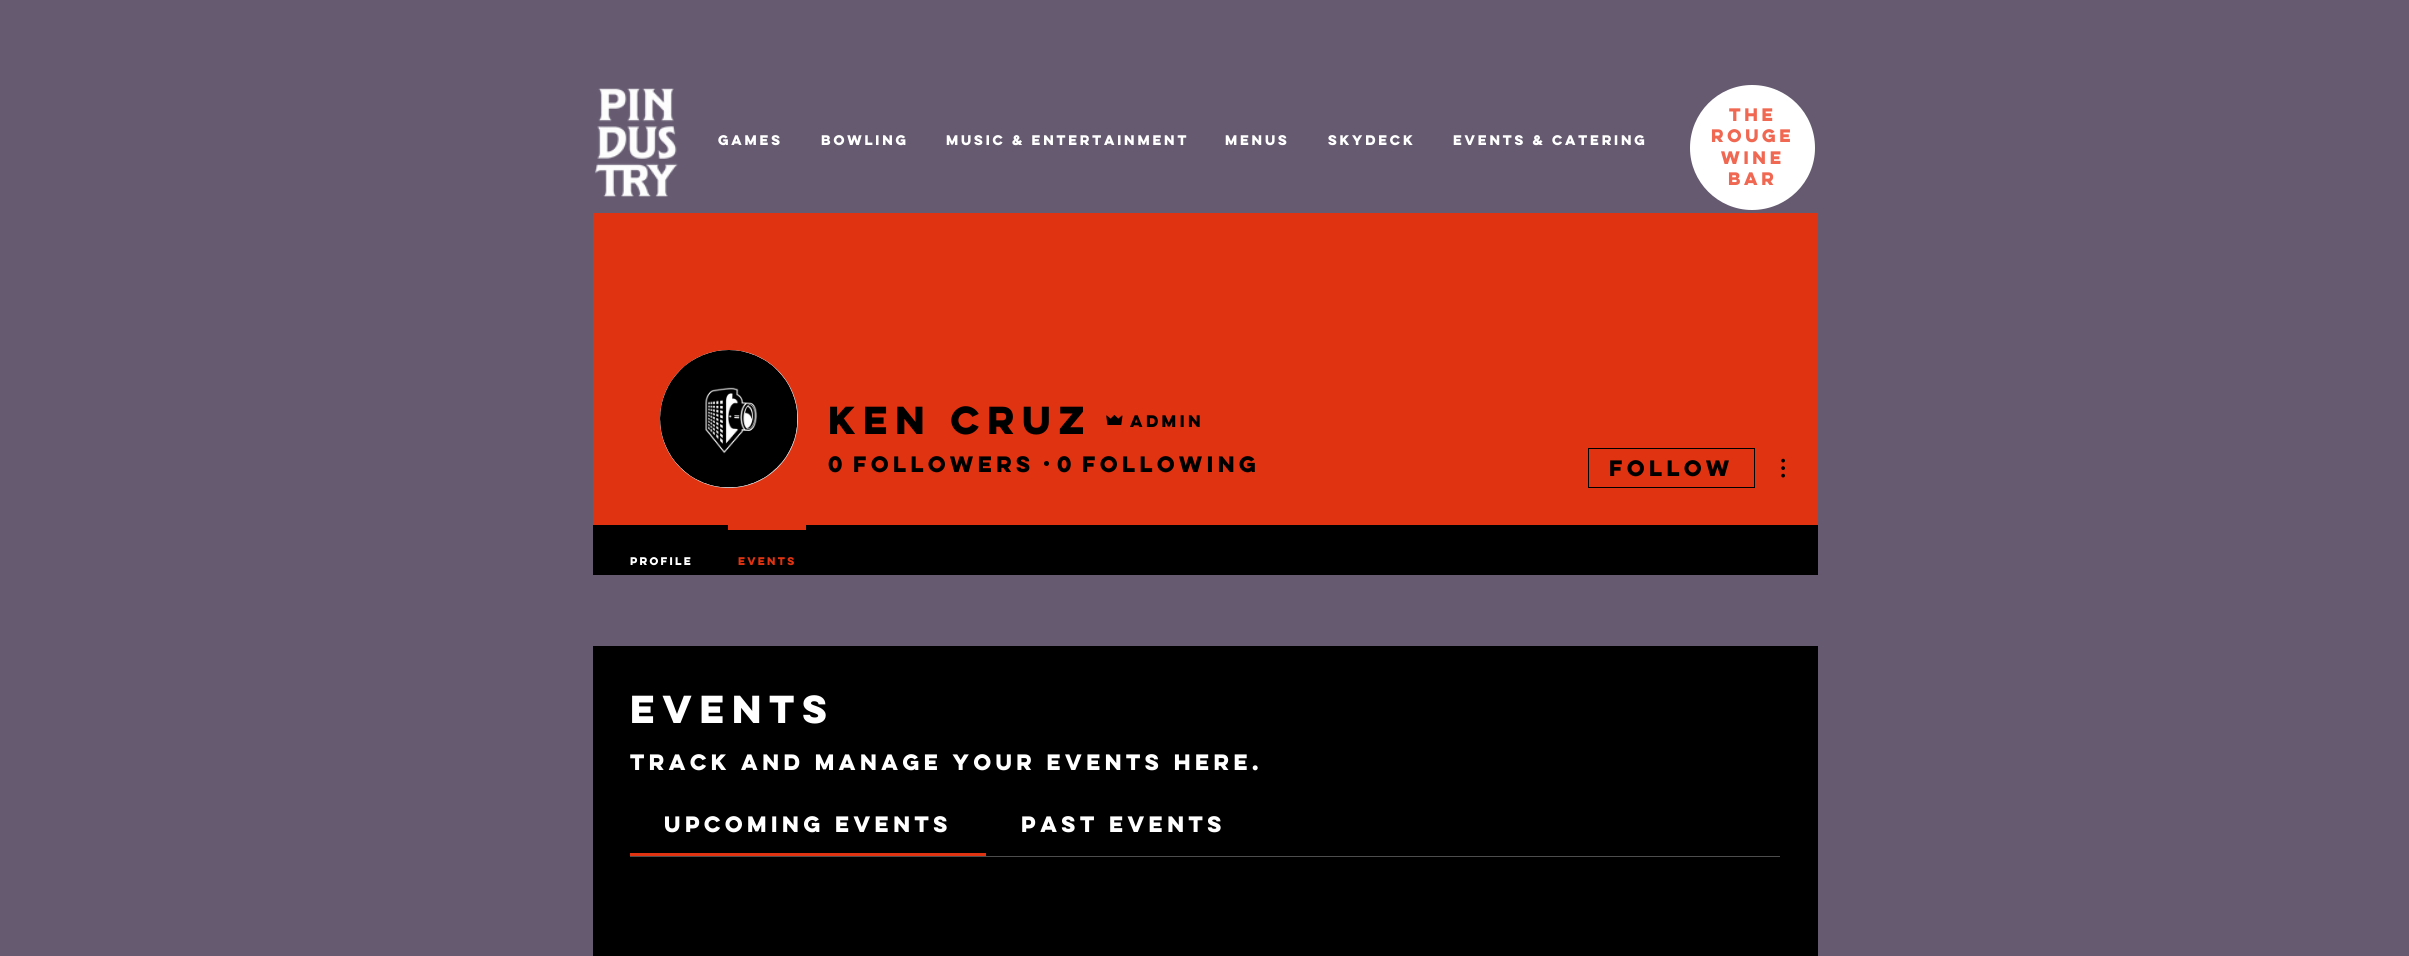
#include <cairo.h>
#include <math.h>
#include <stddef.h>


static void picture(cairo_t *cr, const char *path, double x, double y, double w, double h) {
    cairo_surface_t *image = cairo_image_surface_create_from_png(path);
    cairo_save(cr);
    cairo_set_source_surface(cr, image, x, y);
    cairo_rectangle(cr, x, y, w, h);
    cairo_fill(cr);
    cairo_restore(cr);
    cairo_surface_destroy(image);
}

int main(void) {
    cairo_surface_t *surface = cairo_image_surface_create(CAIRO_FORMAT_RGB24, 2409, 956);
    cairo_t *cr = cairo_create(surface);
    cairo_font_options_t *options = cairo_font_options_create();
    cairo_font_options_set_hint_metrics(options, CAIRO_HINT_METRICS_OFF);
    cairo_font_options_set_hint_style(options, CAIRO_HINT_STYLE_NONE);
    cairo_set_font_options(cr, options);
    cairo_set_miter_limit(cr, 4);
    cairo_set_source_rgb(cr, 0.396, 0.353, 0.439);
    cairo_paint(cr);
    picture(cr, "img1.png", 594, 88, 84, 109);
    cairo_select_font_face(cr, "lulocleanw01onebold", CAIRO_FONT_SLANT_NORMAL, CAIRO_FONT_WEIGHT_BOLD);
    cairo_set_font_size(cr, 12.5);
    cairo_set_source_rgb(cr, 1, 1, 1);
    cairo_move_to(cr, 718, 145);
    cairo_show_text(cr, "Games");
    cairo_move_to(cr, 821, 145);
    cairo_show_text(cr, "Bowling");
    cairo_move_to(cr, 946, 145);
    cairo_show_text(cr, "Music & Entertainment");
    cairo_move_to(cr, 1225, 145);
    cairo_show_text(cr, "Menus");
    cairo_move_to(cr, 1328, 145);
    cairo_show_text(cr, "Skydeck");
    cairo_move_to(cr, 1453, 145);
    cairo_show_text(cr, "Events & Catering");
    cairo_new_path(cr);
    cairo_move_to(cr, 1815, 148);
    cairo_curve_to(cr, 1815, 182, 1787, 210, 1752, 210);
    cairo_curve_to(cr, 1718, 210, 1690, 182, 1690, 148);
    cairo_curve_to(cr, 1690, 113, 1718, 85, 1752, 85);
    cairo_curve_to(cr, 1787, 85, 1815, 113, 1815, 148);
    cairo_close_path(cr);
    cairo_fill(cr);
    cairo_set_font_size(cr, 16.25);
    cairo_set_source_rgb(cr, 0.941, 0.408, 0.322);
    cairo_move_to(cr, 1729, 121);
    cairo_show_text(cr, "The");
    cairo_move_to(cr, 1711, 142);
    cairo_show_text(cr, "ROuge");
    cairo_move_to(cr, 1721, 164);
    cairo_show_text(cr, "Wine");
    cairo_move_to(cr, 1728, 185);
    cairo_show_text(cr, "Bar");
    cairo_set_source_rgb(cr, 0.875, 0.2, 0.067);
    cairo_rectangle(cr, 593, 213, 1225, 312);
    cairo_fill(cr);
    cairo_set_source_rgb(cr, 0.847, 0.847, 0.847);
    cairo_arc(cr, 729, 419, 69, 0, 2 * M_PI);
    cairo_fill(cr);
    picture(cr, "img2.png", 660, 350, 138, 138);
    cairo_set_font_size(cr, 35);
    cairo_set_source_rgb(cr, 0, 0, 0);
    cairo_move_to(cr, 828, 434);
    cairo_show_text(cr, "Ken Cruz");
    picture(cr, "img3.png", 1106, 415, 17, 10);
    cairo_set_font_size(cr, 15);
    cairo_move_to(cr, 1130, 427);
    cairo_show_text(cr, "Admin");
    cairo_set_font_size(cr, 20);
    cairo_move_to(cr, 828, 472);
    cairo_show_text(cr, "0");
    cairo_move_to(cr, 853, 472);
    cairo_show_text(cr, "Followers");
    cairo_new_path(cr);
    cairo_arc(cr, 1046.5, 463.5, 2.5, 0, 2 * M_PI);
    cairo_fill(cr);
    cairo_move_to(cr, 1057, 472);
    cairo_show_text(cr, "0");
    cairo_move_to(cr, 1082, 472);
    cairo_show_text(cr, "Following");
    cairo_rectangle(cr, 1588.5, 448.5, 166, 39);
    cairo_set_line_width(cr, 1);
    cairo_stroke(cr);
    cairo_move_to(cr, 1609, 476);
    cairo_show_text(cr, "Follow");
    picture(cr, "img4.png", 1781, 458, 4, 20);
    cairo_rectangle(cr, 593, 525, 1225, 50);
    cairo_fill(cr);
    cairo_set_font_size(cr, 10);
    cairo_set_source_rgb(cr, 1, 1, 1);
    cairo_move_to(cr, 630, 565);
    cairo_show_text(cr, "Profile");
    cairo_set_source_rgb(cr, 0.875, 0.2, 0.067);
    cairo_rectangle(cr, 728, 525, 78, 5);
    cairo_fill(cr);
    cairo_move_to(cr, 738, 565);
    cairo_show_text(cr, "Events");
    cairo_set_source_rgb(cr, 0, 0, 0);
    cairo_rectangle(cr, 593, 646, 1225, 310);
    cairo_fill(cr);
    cairo_set_font_size(cr, 35);
    cairo_set_source_rgb(cr, 1, 1, 1);
    cairo_move_to(cr, 630, 723);
    cairo_show_text(cr, "Events");
    cairo_set_font_size(cr, 20);
    cairo_move_to(cr, 630, 770);
    cairo_show_text(cr, "Track and manage your events here.");
    cairo_set_source_rgb(cr, 0.875, 0.2, 0.067);
    cairo_rectangle(cr, 630, 853, 356, 3);
    cairo_fill(cr);
    cairo_set_source_rgb(cr, 1, 1, 1);
    cairo_move_to(cr, 664, 832);
    cairo_show_text(cr, "Upcoming Events");
    cairo_move_to(cr, 1021, 832);
    cairo_show_text(cr, "Past Events");
    cairo_set_source_rgb(cr, 0.302, 0.302, 0.302);
    cairo_rectangle(cr, 630, 856, 1150, 1);
    cairo_fill(cr);
    cairo_surface_write_to_png(surface, "page.png");
    cairo_font_options_destroy(options);
    cairo_destroy(cr);
    cairo_surface_destroy(surface);
    return 0;
}
